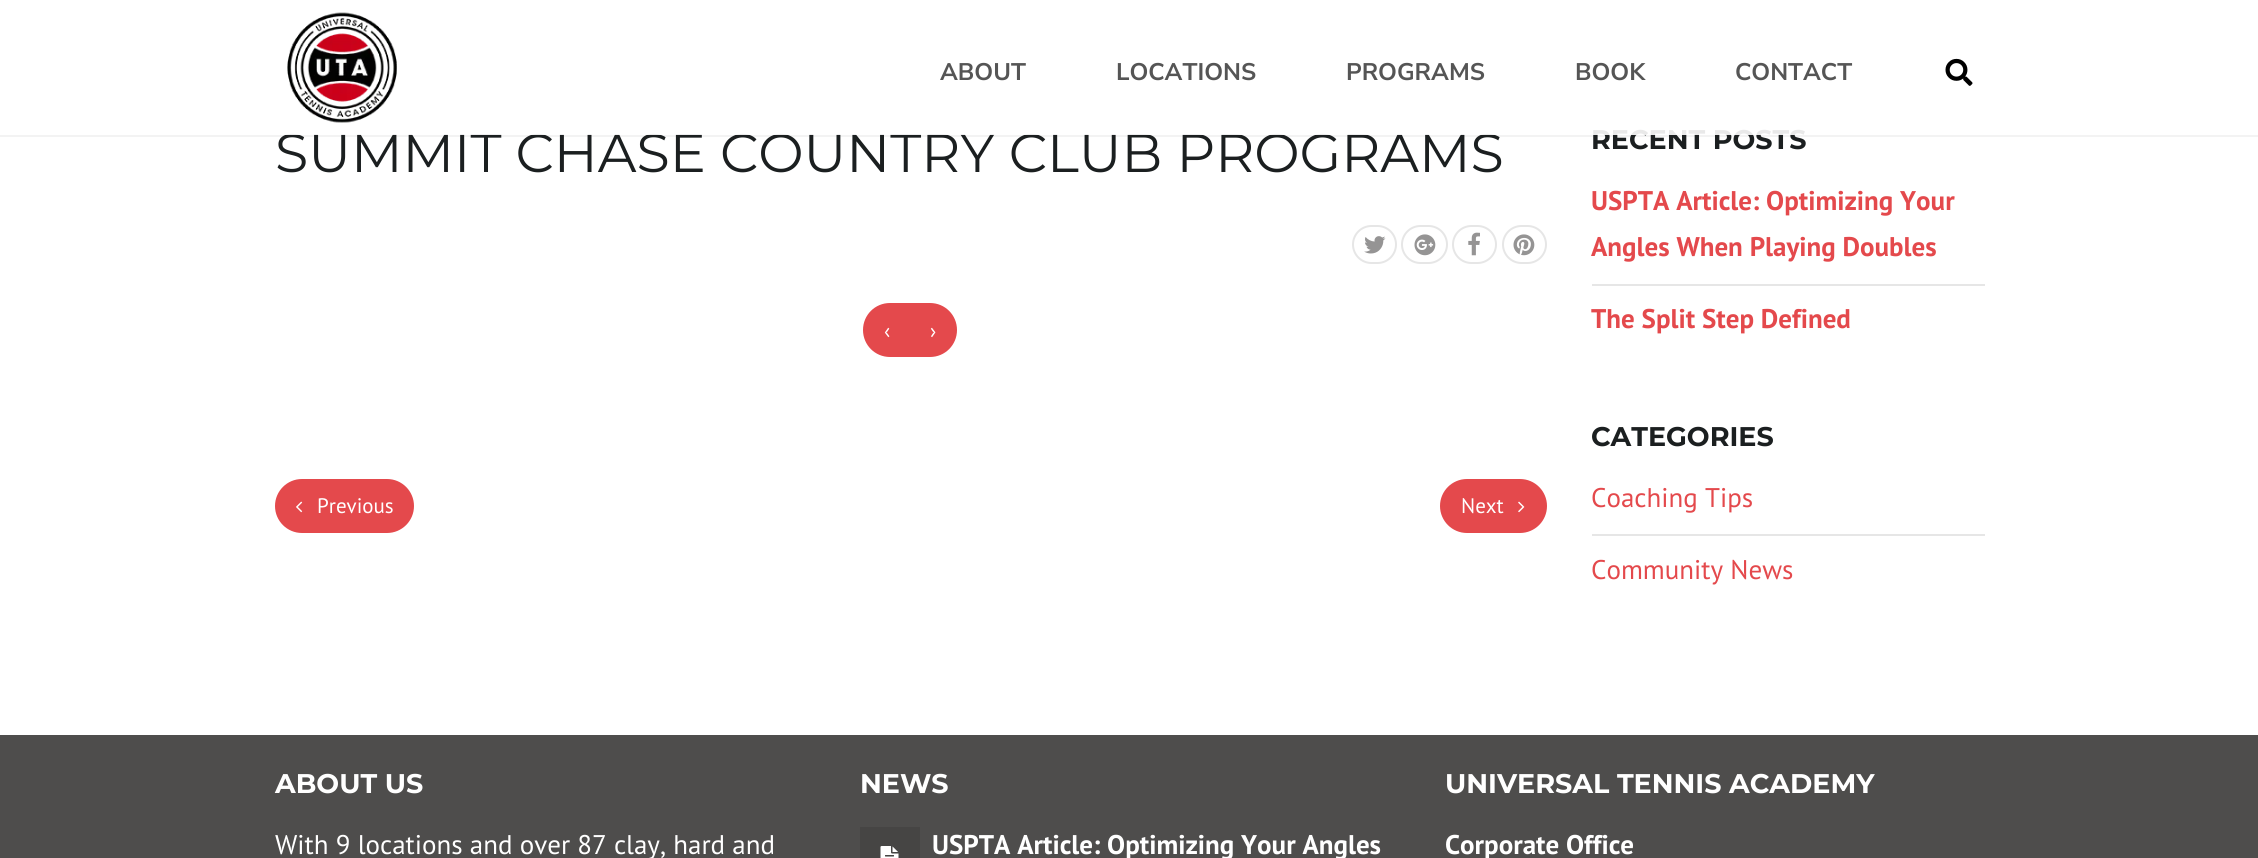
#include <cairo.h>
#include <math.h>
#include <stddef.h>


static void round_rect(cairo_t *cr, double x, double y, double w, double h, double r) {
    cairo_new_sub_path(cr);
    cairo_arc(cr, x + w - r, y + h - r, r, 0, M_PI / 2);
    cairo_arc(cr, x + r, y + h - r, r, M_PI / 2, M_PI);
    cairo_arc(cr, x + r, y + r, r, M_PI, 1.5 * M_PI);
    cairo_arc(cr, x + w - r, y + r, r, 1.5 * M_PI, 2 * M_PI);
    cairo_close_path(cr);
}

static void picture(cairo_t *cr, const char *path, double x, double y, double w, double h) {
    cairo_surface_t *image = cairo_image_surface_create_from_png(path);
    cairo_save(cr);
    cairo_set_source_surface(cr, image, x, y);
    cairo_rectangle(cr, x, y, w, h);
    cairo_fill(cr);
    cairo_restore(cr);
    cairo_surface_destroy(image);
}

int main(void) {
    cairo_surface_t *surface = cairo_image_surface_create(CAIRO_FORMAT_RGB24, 2258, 858);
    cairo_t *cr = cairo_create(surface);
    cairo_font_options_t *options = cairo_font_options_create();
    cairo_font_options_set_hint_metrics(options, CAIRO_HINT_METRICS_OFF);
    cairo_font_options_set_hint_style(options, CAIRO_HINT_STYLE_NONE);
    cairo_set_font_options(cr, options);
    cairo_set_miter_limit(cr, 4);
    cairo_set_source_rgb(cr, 1, 1, 1);
    cairo_paint(cr);
    cairo_set_source_rgba(cr, 0.051, 0.055, 0.059, 0.05);
    cairo_rectangle(cr, 0, 135, 2258, 2);
    cairo_fill(cr);
    cairo_select_font_face(cr, "Montserrat", CAIRO_FONT_SLANT_NORMAL, CAIRO_FONT_WEIGHT_NORMAL);
    cairo_set_font_size(cr, 54);
    cairo_set_source_rgb(cr, 0.106, 0.122, 0.125);
    cairo_move_to(cr, 275, 172);
    cairo_show_text(cr, "SUMMIT CHASE COUNTRY CLUB PROGRAMS");
    cairo_select_font_face(cr, "Montserrat", CAIRO_FONT_SLANT_NORMAL, CAIRO_FONT_WEIGHT_BOLD);
    cairo_set_font_size(cr, 27);
    cairo_move_to(cr, 1591, 149);
    cairo_show_text(cr, "RECENT POSTS");
    cairo_set_source_rgba(cr, 1, 1, 1, 0.9);
    cairo_rectangle(cr, 285, 129, 1520, 6);
    cairo_fill(cr);
    picture(cr, "img1.png", 287, 12, 110, 111);
    cairo_select_font_face(cr, "Nunito Sans", CAIRO_FONT_SLANT_NORMAL, CAIRO_FONT_WEIGHT_BOLD);
    cairo_set_font_size(cr, 24);
    cairo_set_source_rgb(cr, 0.333, 0.333, 0.333);
    cairo_move_to(cr, 940, 80);
    cairo_show_text(cr, "ABOUT");
    cairo_move_to(cr, 1116, 80);
    cairo_show_text(cr, "LOCATIONS");
    cairo_move_to(cr, 1346, 80);
    cairo_show_text(cr, "PROGRAMS");
    cairo_move_to(cr, 1575, 80);
    cairo_show_text(cr, "BOOK");
    cairo_move_to(cr, 1735, 80);
    cairo_show_text(cr, "CONTACT");
    picture(cr, "img2.png", 1945, 58, 28, 28);
    round_rect(cr, 1353, 226, 43, 37, 18.5);
    cairo_set_source_rgb(cr, 0.902, 0.902, 0.902);
    cairo_stroke(cr);
    picture(cr, "img3.png", 1364, 236, 22, 18);
    round_rect(cr, 1402, 226, 45, 37, 18.5);
    cairo_stroke(cr);
    picture(cr, "img4.png", 1414, 234, 22, 22);
    round_rect(cr, 1453, 226, 43, 37, 18.5);
    cairo_stroke(cr);
    picture(cr, "img5.png", 1468, 232, 12, 24);
    round_rect(cr, 1503, 226, 43, 37, 18.5);
    cairo_stroke(cr);
    picture(cr, "img6.png", 1513, 234, 22, 22);
    cairo_set_source_rgb(cr, 0.894, 0.286, 0.298);
    cairo_new_path(cr);
    cairo_move_to(cr, 890, 303);
    cairo_line_to(cr, 911, 303);
    cairo_line_to(cr, 911, 357);
    cairo_line_to(cr, 890, 357);
    cairo_curve_to(cr, 875, 357, 863, 345, 863, 330);
    cairo_curve_to(cr, 863, 315, 875, 303, 890, 303);
    cairo_close_path(cr);
    cairo_fill(cr);
    cairo_select_font_face(cr, "PT Sans", CAIRO_FONT_SLANT_NORMAL, CAIRO_FONT_WEIGHT_NORMAL);
    cairo_set_font_size(cr, 21);
    cairo_set_source_rgb(cr, 1, 1, 1);
    cairo_move_to(cr, 884, 338);
    cairo_show_text(cr, "‹");
    cairo_set_source_rgb(cr, 0.894, 0.286, 0.298);
    cairo_new_path(cr);
    cairo_move_to(cr, 909, 303);
    cairo_line_to(cr, 930, 303);
    cairo_curve_to(cr, 945, 303, 957, 315, 957, 330);
    cairo_curve_to(cr, 957, 345, 945, 357, 930, 357);
    cairo_line_to(cr, 909, 357);
    cairo_close_path(cr);
    cairo_fill(cr);
    cairo_set_source_rgb(cr, 1, 1, 1);
    cairo_move_to(cr, 930, 338);
    cairo_show_text(cr, "›");
    cairo_set_source_rgb(cr, 0.894, 0.286, 0.298);
    round_rect(cr, 275, 479, 139, 54, 27);
    cairo_fill(cr);
    picture(cr, "img7.png", 296, 501, 7, 12);
    cairo_set_source_rgb(cr, 1, 1, 1);
    cairo_move_to(cr, 317, 513);
    cairo_show_text(cr, "Previous");
    cairo_set_source_rgb(cr, 0.894, 0.286, 0.298);
    round_rect(cr, 1440, 479, 107, 54, 27);
    cairo_fill(cr);
    cairo_set_source_rgb(cr, 1, 1, 1);
    cairo_move_to(cr, 1461, 513);
    cairo_show_text(cr, "Next");
    picture(cr, "img8.png", 1518, 501, 7, 12);
    cairo_set_source_rgb(cr, 0.902, 0.902, 0.902);
    cairo_rectangle(cr, 1592, 284, 393, 2);
    cairo_fill(cr);
    cairo_select_font_face(cr, "PT Sans", CAIRO_FONT_SLANT_NORMAL, CAIRO_FONT_WEIGHT_BOLD);
    cairo_set_font_size(cr, 27);
    cairo_set_source_rgb(cr, 0.894, 0.286, 0.298);
    cairo_move_to(cr, 1591, 210);
    cairo_show_text(cr, "USPTA Article: Optimizing Your");
    cairo_move_to(cr, 1591, 256);
    cairo_show_text(cr, "Angles When Playing Doubles");
    cairo_move_to(cr, 1591, 328);
    cairo_show_text(cr, "The Split Step Defined");
    cairo_select_font_face(cr, "Montserrat", CAIRO_FONT_SLANT_NORMAL, CAIRO_FONT_WEIGHT_BOLD);
    cairo_set_source_rgb(cr, 0.106, 0.122, 0.125);
    cairo_move_to(cr, 1591, 446);
    cairo_show_text(cr, "CATEGORIES");
    cairo_set_source_rgb(cr, 0.902, 0.902, 0.902);
    cairo_rectangle(cr, 1592, 534, 393, 2);
    cairo_fill(cr);
    cairo_select_font_face(cr, "PT Sans", CAIRO_FONT_SLANT_NORMAL, CAIRO_FONT_WEIGHT_NORMAL);
    cairo_set_source_rgb(cr, 0.894, 0.286, 0.298);
    cairo_move_to(cr, 1591, 507);
    cairo_show_text(cr, "Coaching Tips");
    cairo_move_to(cr, 1591, 579);
    cairo_show_text(cr, "Community News");
    cairo_set_source_rgb(cr, 0.306, 0.302, 0.298);
    cairo_rectangle(cr, 0, 735, 2258, 123);
    cairo_fill(cr);
    cairo_select_font_face(cr, "Montserrat", CAIRO_FONT_SLANT_NORMAL, CAIRO_FONT_WEIGHT_BOLD);
    cairo_set_source_rgb(cr, 1, 1, 1);
    cairo_move_to(cr, 275, 793);
    cairo_show_text(cr, "ABOUT US");
    cairo_select_font_face(cr, "PT Sans", CAIRO_FONT_SLANT_NORMAL, CAIRO_FONT_WEIGHT_NORMAL);
    cairo_move_to(cr, 275, 854);
    cairo_show_text(cr, "With 9 locations and over 87 clay, hard and");
    cairo_select_font_face(cr, "Montserrat", CAIRO_FONT_SLANT_NORMAL, CAIRO_FONT_WEIGHT_BOLD);
    cairo_move_to(cr, 860, 793);
    cairo_show_text(cr, "NEWS");
    cairo_set_source_rgb(cr, 0.275, 0.271, 0.267);
    cairo_rectangle(cr, 860, 827, 60, 31);
    cairo_fill(cr);
    picture(cr, "img9.png", 880, 846, 19, 12);
    cairo_select_font_face(cr, "PT Sans", CAIRO_FONT_SLANT_NORMAL, CAIRO_FONT_WEIGHT_BOLD);
    cairo_set_source_rgb(cr, 1, 1, 1);
    cairo_move_to(cr, 932, 854);
    cairo_show_text(cr, "USPTA Article: Optimizing Your Angles");
    cairo_select_font_face(cr, "Montserrat", CAIRO_FONT_SLANT_NORMAL, CAIRO_FONT_WEIGHT_BOLD);
    cairo_move_to(cr, 1445, 793);
    cairo_show_text(cr, "UNIVERSAL TENNIS ACADEMY");
    cairo_select_font_face(cr, "PT Sans", CAIRO_FONT_SLANT_NORMAL, CAIRO_FONT_WEIGHT_BOLD);
    cairo_move_to(cr, 1445, 854);
    cairo_show_text(cr, "Corporate Office");
    cairo_surface_write_to_png(surface, "page.png");
    cairo_font_options_destroy(options);
    cairo_destroy(cr);
    cairo_surface_destroy(surface);
    return 0;
}
